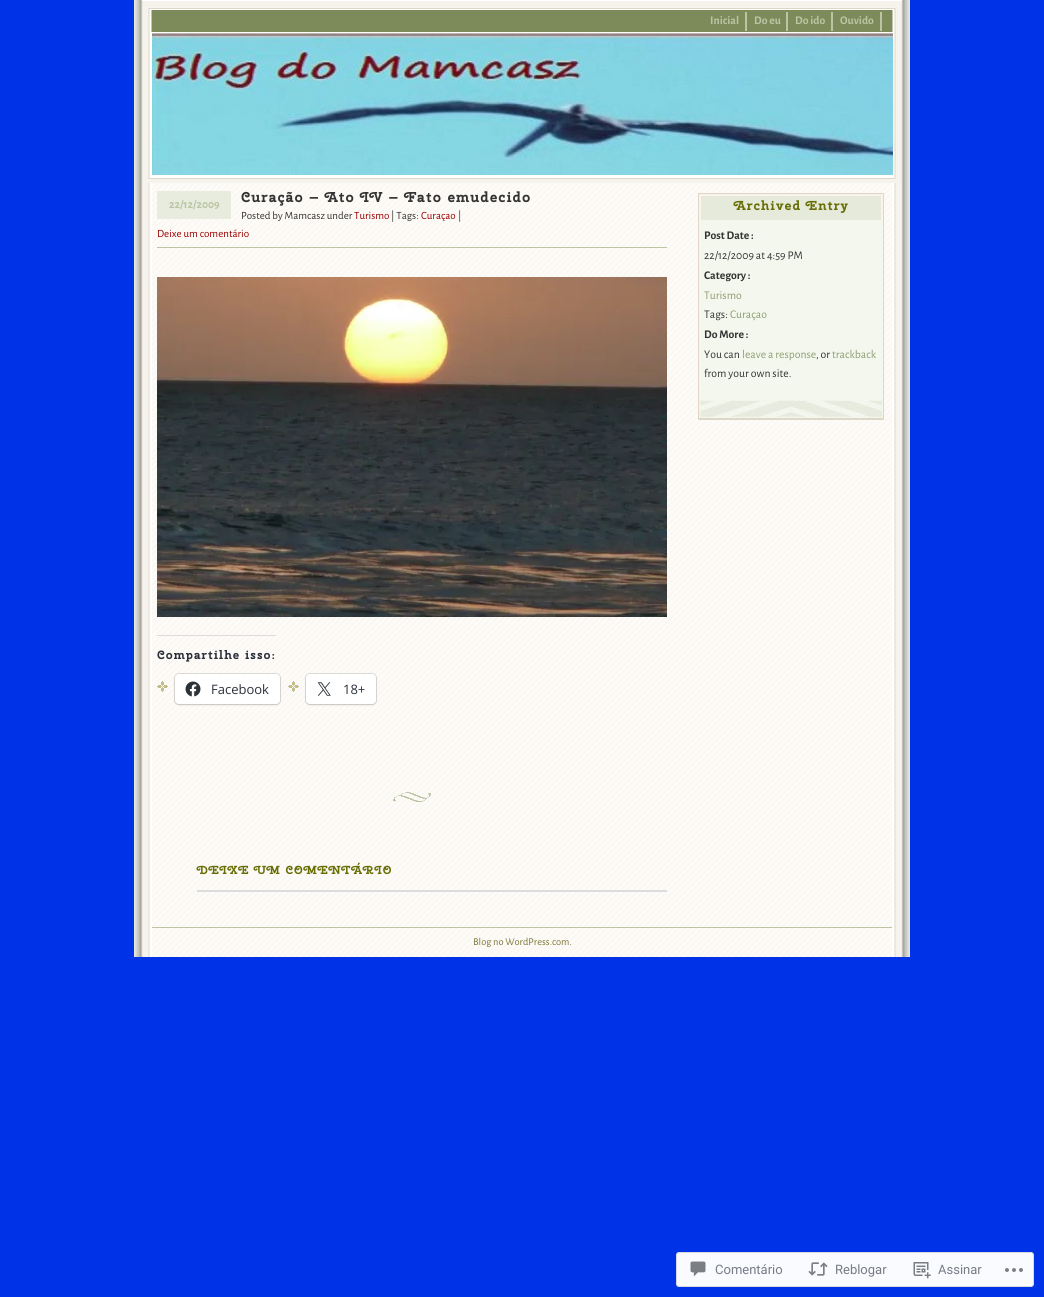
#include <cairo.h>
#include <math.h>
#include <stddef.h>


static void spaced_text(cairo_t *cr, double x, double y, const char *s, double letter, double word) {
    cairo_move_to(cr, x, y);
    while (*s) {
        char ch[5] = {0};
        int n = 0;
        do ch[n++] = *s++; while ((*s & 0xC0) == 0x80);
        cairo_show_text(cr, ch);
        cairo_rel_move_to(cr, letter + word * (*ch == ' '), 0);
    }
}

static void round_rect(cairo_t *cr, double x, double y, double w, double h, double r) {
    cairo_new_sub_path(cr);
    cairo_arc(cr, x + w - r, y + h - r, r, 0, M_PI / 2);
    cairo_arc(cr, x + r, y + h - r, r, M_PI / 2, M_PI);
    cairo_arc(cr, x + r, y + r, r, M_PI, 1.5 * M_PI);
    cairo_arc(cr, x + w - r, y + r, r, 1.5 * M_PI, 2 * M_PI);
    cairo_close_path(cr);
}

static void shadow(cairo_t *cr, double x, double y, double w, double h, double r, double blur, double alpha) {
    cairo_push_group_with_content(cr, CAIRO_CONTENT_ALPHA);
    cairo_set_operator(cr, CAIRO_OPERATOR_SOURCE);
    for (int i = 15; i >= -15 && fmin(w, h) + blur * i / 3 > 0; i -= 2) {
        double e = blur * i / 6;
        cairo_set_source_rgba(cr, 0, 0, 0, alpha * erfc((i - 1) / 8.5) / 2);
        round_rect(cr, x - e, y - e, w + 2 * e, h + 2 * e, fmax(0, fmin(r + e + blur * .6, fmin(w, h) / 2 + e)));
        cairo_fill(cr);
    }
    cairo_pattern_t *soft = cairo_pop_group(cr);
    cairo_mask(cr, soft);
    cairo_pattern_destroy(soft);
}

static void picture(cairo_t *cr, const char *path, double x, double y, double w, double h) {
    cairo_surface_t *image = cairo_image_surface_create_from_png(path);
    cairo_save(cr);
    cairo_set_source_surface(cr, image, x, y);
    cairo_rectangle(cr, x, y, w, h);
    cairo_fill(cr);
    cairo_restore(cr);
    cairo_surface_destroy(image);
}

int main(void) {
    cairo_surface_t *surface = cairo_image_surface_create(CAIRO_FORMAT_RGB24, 1044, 1297);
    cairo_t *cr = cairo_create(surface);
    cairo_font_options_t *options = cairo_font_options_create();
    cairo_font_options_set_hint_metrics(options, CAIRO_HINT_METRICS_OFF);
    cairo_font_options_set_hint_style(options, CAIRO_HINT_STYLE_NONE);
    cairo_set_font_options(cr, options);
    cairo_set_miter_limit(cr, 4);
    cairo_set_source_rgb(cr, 0, 0.196, 0.91);
    cairo_paint(cr);
    picture(cr, "img1.png", 134, 0, 776, 957);
    cairo_set_source_rgb(cr, 1, 1, 1);
    cairo_rectangle(cr, 142, 0, 760, 176);
    cairo_fill(cr);
    picture(cr, "img2.png", 142, 1, 760, 182);
    cairo_set_source_rgb(cr, 0.733, 0.769, 0.639);
    cairo_rectangle(cr, 745, 12, 2, 19);
    cairo_fill(cr);
    cairo_select_font_face(cr, "Alegreya Sans", CAIRO_FONT_SLANT_NORMAL, CAIRO_FONT_WEIGHT_BOLD);
    cairo_set_font_size(cr, 11.7);
    cairo_move_to(cr, 710, 24);
    cairo_show_text(cr, "Inicial");
    cairo_rectangle(cr, 786, 12, 2, 19);
    cairo_fill(cr);
    cairo_move_to(cr, 754, 24);
    cairo_show_text(cr, "Do eu");
    cairo_rectangle(cr, 831, 12, 2, 19);
    cairo_fill(cr);
    cairo_move_to(cr, 795, 24);
    cairo_show_text(cr, "Do ido");
    cairo_rectangle(cr, 880, 12, 2, 19);
    cairo_fill(cr);
    cairo_move_to(cr, 840, 24);
    cairo_show_text(cr, "Ouvido");
    picture(cr, "img3.png", 152, 33, 741, 142);
    picture(cr, "img4.png", 152, 183, 740, 774);
    cairo_select_font_face(cr, "Cherry Swash", CAIRO_FONT_SLANT_NORMAL, CAIRO_FONT_WEIGHT_BOLD);
    cairo_set_font_size(cr, 14.3);
    cairo_set_source_rgb(cr, 0.2, 0.2, 0.2);
    spaced_text(cr, 241, 202, "Curação – Ato IV – Fato emudecido", 1, 0);
    cairo_select_font_face(cr, "Alegreya Sans", CAIRO_FONT_SLANT_NORMAL, CAIRO_FONT_WEIGHT_NORMAL);
    cairo_set_font_size(cr, 11);
    cairo_move_to(cr, 241, 219);
    cairo_show_text(cr, "Posted by Mamcasz under");
    cairo_set_source_rgb(cr, 0.6, 0, 0);
    cairo_move_to(cr, 354, 219);
    cairo_show_text(cr, "Turismo");
    cairo_set_source_rgb(cr, 0.2, 0.2, 0.2);
    cairo_move_to(cr, 391, 219);
    cairo_show_text(cr, "| Tags:");
    cairo_set_source_rgb(cr, 0.6, 0, 0);
    cairo_move_to(cr, 421, 219);
    cairo_show_text(cr, "Curaçao");
    cairo_set_source_rgb(cr, 0.2, 0.2, 0.2);
    cairo_move_to(cr, 458, 219);
    cairo_show_text(cr, "|");
    cairo_set_source_rgb(cr, 0.6, 0, 0);
    cairo_move_to(cr, 157, 237);
    cairo_show_text(cr, "Deixe um comentário");
    cairo_set_source_rgb(cr, 0.906, 0.922, 0.871);
    cairo_rectangle(cr, 157, 191, 74, 28);
    cairo_fill(cr);
    cairo_select_font_face(cr, "Alegreya Sans", CAIRO_FONT_SLANT_NORMAL, CAIRO_FONT_WEIGHT_BOLD);
    cairo_set_font_size(cr, 11.7);
    cairo_set_source_rgb(cr, 0.733, 0.769, 0.639);
    cairo_move_to(cr, 169, 208);
    cairo_show_text(cr, "22/12/2009");
    cairo_rectangle(cr, 157, 247, 510, 1);
    cairo_fill(cr);
    picture(cr, "img5.png", 157, 277, 510, 340);
    cairo_set_source_rgb(cr, 0.863, 0.863, 0.871);
    cairo_rectangle(cr, 157, 635, 119, 1);
    cairo_fill(cr);
    cairo_select_font_face(cr, "Cherry Swash", CAIRO_FONT_SLANT_NORMAL, CAIRO_FONT_WEIGHT_BOLD);
    cairo_set_font_size(cr, 12);
    cairo_set_source_rgb(cr, 0.161, 0.188, 0.231);
    spaced_text(cr, 157, 659, "Compartilhe isso:", 1, 0);
    picture(cr, "img6.png", 157, 681, 11, 11);
    round_rect(cr, 174.5, 673.5, 106, 31, 4.5);
    cairo_set_source_rgba(cr, 0, 0, 0, 0.12);
    cairo_set_line_width(cr, 1);
    cairo_stroke(cr);
    cairo_set_source_rgb(cr, 0, 0, 0);
    shadow(cr, 175, 675, 105, 30, 4, 1, 0.12);
    cairo_set_source_rgb(cr, 1, 1, 1);
    round_rect(cr, 175, 674, 105, 30, 4);
    cairo_fill(cr);
    picture(cr, "img7.png", 185, 681, 16, 16);
    cairo_select_font_face(cr, "Open Sans", CAIRO_FONT_SLANT_NORMAL, CAIRO_FONT_WEIGHT_NORMAL);
    cairo_set_font_size(cr, 13);
    cairo_set_source_rgb(cr, 0.161, 0.188, 0.231);
    cairo_move_to(cr, 211, 694);
    cairo_show_text(cr, "Facebook");
    picture(cr, "img8.png", 288, 681, 11, 11);
    round_rect(cr, 305.5, 673.5, 71, 31, 4.5);
    cairo_set_source_rgba(cr, 0, 0, 0, 0.12);
    cairo_stroke(cr);
    cairo_set_source_rgb(cr, 0, 0, 0);
    shadow(cr, 306, 675, 70, 30, 4, 1, 0.12);
    cairo_set_source_rgb(cr, 1, 1, 1);
    round_rect(cr, 306, 674, 70, 30, 4);
    cairo_fill(cr);
    picture(cr, "img9.png", 317, 682, 14, 14);
    cairo_set_source_rgb(cr, 0.161, 0.188, 0.231);
    cairo_move_to(cr, 343, 694);
    cairo_show_text(cr, "18+");
    picture(cr, "img10.png", 393, 792, 38, 10);
    cairo_select_font_face(cr, "Cherry Swash", CAIRO_FONT_SLANT_NORMAL, CAIRO_FONT_WEIGHT_BOLD);
    cairo_set_font_size(cr, 11.7);
    cairo_set_source_rgb(cr, 0.404, 0.431, 0.016);
    spaced_text(cr, 197, 874, "DEIXE UM COMENTÁRIO", 1, 0);
    cairo_set_source_rgb(cr, 0.863, 0.863, 0.871);
    cairo_rectangle(cr, 197, 890, 470, 2);
    cairo_fill(cr);
    picture(cr, "img11.png", 698, 193, 186, 27);
    cairo_set_font_size(cr, 13);
    cairo_set_source_rgb(cr, 0.404, 0.431, 0.016);
    spaced_text(cr, 734, 210, "Archived Entry", 1, 0);
    cairo_set_source_rgb(cr, 0.953, 0.965, 0.929);
    cairo_rectangle(cr, 699, 220, 184, 180);
    cairo_fill(cr);
    picture(cr, "img12.png", 699, 400, 184, 19);
    cairo_set_source_rgb(cr, 0.882, 0.839, 0.776);
    cairo_rectangle(cr, 883, 220, 1, 200);
    cairo_fill(cr);
    cairo_rectangle(cr, 698, 419, 186, 1);
    cairo_fill(cr);
    cairo_rectangle(cr, 698, 220, 1, 200);
    cairo_fill(cr);
    cairo_select_font_face(cr, "Alegreya Sans", CAIRO_FONT_SLANT_NORMAL, CAIRO_FONT_WEIGHT_BOLD);
    cairo_set_font_size(cr, 11.7);
    cairo_set_source_rgb(cr, 0.2, 0.2, 0.2);
    cairo_move_to(cr, 704, 239);
    cairo_show_text(cr, "Post Date :");
    cairo_select_font_face(cr, "Alegreya Sans", CAIRO_FONT_SLANT_NORMAL, CAIRO_FONT_WEIGHT_NORMAL);
    cairo_move_to(cr, 704, 259);
    cairo_show_text(cr, "22/12/2009 at 4:59 PM");
    cairo_select_font_face(cr, "Alegreya Sans", CAIRO_FONT_SLANT_NORMAL, CAIRO_FONT_WEIGHT_BOLD);
    cairo_move_to(cr, 704, 279);
    cairo_show_text(cr, "Category :");
    cairo_select_font_face(cr, "Alegreya Sans", CAIRO_FONT_SLANT_NORMAL, CAIRO_FONT_WEIGHT_NORMAL);
    cairo_set_source_rgb(cr, 0.565, 0.616, 0.451);
    cairo_move_to(cr, 704, 299);
    cairo_show_text(cr, "Turismo");
    cairo_set_source_rgb(cr, 0.2, 0.2, 0.2);
    cairo_move_to(cr, 704, 318);
    cairo_show_text(cr, "Tags:");
    cairo_set_source_rgb(cr, 0.565, 0.616, 0.451);
    cairo_move_to(cr, 730, 318);
    cairo_show_text(cr, "Curaçao");
    cairo_select_font_face(cr, "Alegreya Sans", CAIRO_FONT_SLANT_NORMAL, CAIRO_FONT_WEIGHT_BOLD);
    cairo_set_source_rgb(cr, 0.2, 0.2, 0.2);
    cairo_move_to(cr, 704, 338);
    cairo_show_text(cr, "Do More :");
    cairo_select_font_face(cr, "Alegreya Sans", CAIRO_FONT_SLANT_NORMAL, CAIRO_FONT_WEIGHT_NORMAL);
    cairo_move_to(cr, 704, 358);
    cairo_show_text(cr, "You can");
    cairo_set_source_rgb(cr, 0.565, 0.616, 0.451);
    cairo_move_to(cr, 742, 358);
    cairo_show_text(cr, "leave a response");
    cairo_set_source_rgb(cr, 0.2, 0.2, 0.2);
    cairo_move_to(cr, 816, 358);
    cairo_show_text(cr, ", or");
    cairo_set_source_rgb(cr, 0.565, 0.616, 0.451);
    cairo_move_to(cr, 832, 358);
    cairo_show_text(cr, "trackback");
    cairo_set_source_rgb(cr, 0.2, 0.2, 0.2);
    cairo_move_to(cr, 704, 377);
    cairo_show_text(cr, "from your own site.");
    cairo_set_source_rgb(cr, 0.733, 0.769, 0.639);
    cairo_rectangle(cr, 152, 927, 740, 1);
    cairo_fill(cr);
    cairo_set_font_size(cr, 10.4);
    cairo_set_source_rgb(cr, 0.478, 0.463, 0.212);
    cairo_move_to(cr, 473, 945);
    cairo_show_text(cr, "Blog no WordPress.com.");
    cairo_set_source_rgb(cr, 0.98, 0.984, 1);
    round_rect(cr, 676.5, 1252.5, 357, 34, 2.5);
    cairo_fill_preserve(cr);
    cairo_set_source_rgb(cr, 0.847, 0.851, 0.871);
    cairo_stroke(cr);
    picture(cr, "img13.png", 690, 1261, 16, 16);
    cairo_select_font_face(cr, "Roboto", CAIRO_FONT_SLANT_NORMAL, CAIRO_FONT_WEIGHT_NORMAL);
    cairo_set_font_size(cr, 13);
    cairo_set_source_rgb(cr, 0.463, 0.482, 0.518);
    cairo_move_to(cr, 715, 1274);
    cairo_show_text(cr, "Comentário");
    picture(cr, "img14.png", 808, 1262, 20, 14);
    cairo_move_to(cr, 835, 1274);
    cairo_show_text(cr, "Reblogar");
    picture(cr, "img15.png", 913, 1262, 18, 17);
    cairo_move_to(cr, 938, 1274);
    cairo_show_text(cr, "Assinar");
    picture(cr, "img16.png", 1005, 1268, 18, 4);
    cairo_surface_write_to_png(surface, "page.png");
    cairo_font_options_destroy(options);
    cairo_destroy(cr);
    cairo_surface_destroy(surface);
    return 0;
}
